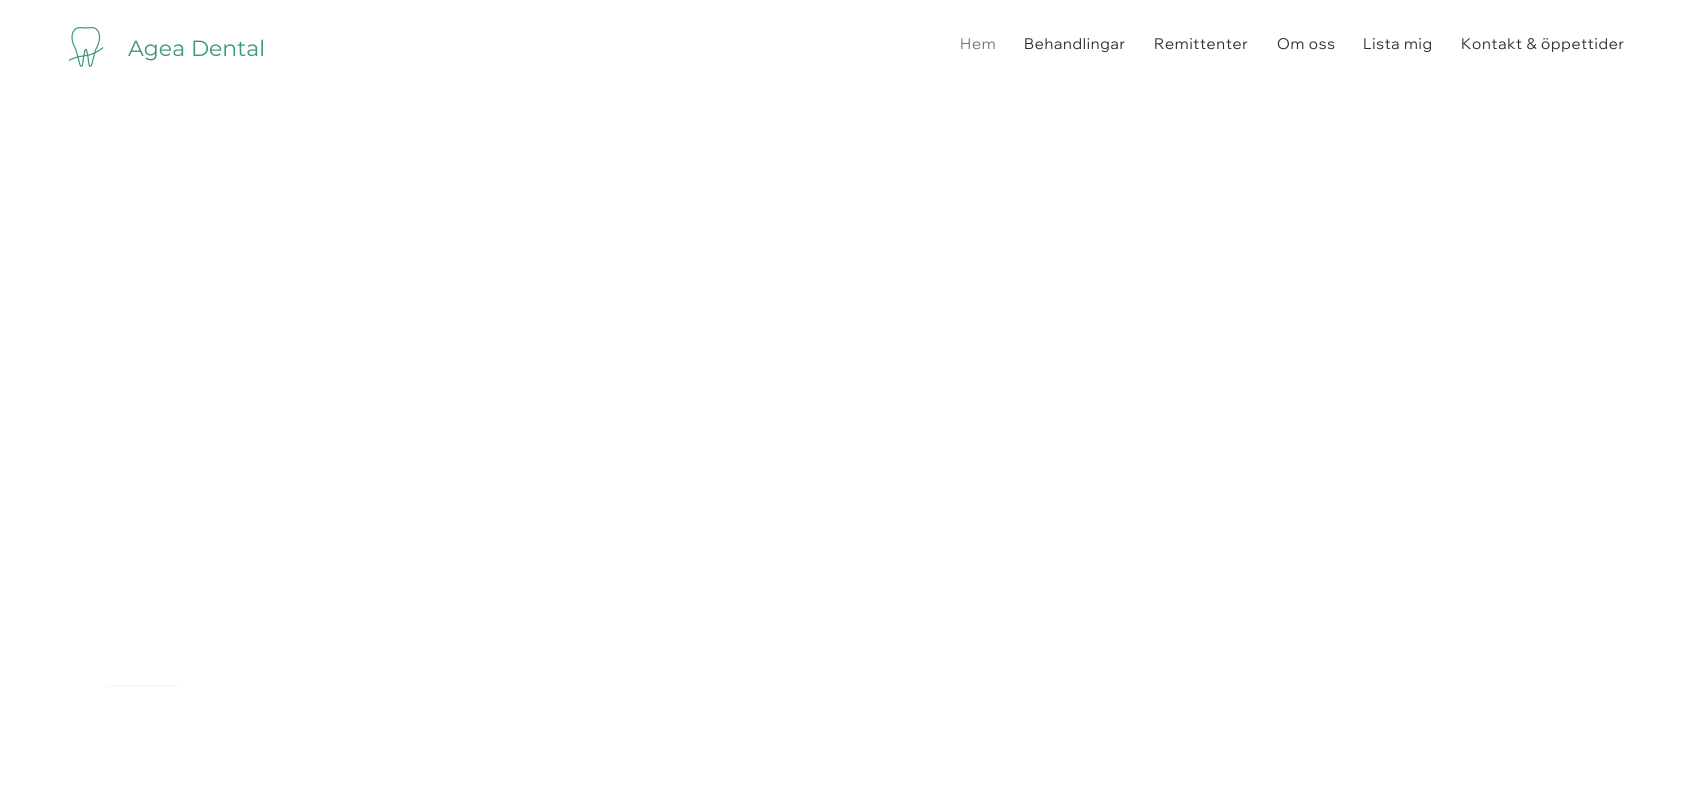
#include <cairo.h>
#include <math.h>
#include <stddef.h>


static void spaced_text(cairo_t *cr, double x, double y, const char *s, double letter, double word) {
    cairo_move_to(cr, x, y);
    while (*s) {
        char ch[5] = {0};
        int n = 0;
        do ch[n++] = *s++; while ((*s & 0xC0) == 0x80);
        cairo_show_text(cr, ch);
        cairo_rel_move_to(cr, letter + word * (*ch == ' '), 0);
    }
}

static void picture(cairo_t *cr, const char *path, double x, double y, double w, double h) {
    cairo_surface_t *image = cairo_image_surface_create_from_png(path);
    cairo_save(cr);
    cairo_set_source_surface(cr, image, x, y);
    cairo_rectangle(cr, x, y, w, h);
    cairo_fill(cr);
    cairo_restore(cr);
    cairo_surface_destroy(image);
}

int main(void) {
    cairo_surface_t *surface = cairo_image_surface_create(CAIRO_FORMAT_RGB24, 1700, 785);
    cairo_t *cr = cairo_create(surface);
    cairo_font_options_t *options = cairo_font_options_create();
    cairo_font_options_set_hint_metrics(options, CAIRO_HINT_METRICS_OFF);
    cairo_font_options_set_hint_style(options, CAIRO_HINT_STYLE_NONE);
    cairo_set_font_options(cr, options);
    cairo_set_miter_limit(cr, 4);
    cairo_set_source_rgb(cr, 1, 1, 1);
    cairo_paint(cr);
    picture(cr, "img1.png", 68, 27, 36, 40);
    cairo_select_font_face(cr, "Montserrat", CAIRO_FONT_SLANT_NORMAL, CAIRO_FONT_WEIGHT_NORMAL);
    cairo_set_font_size(cr, 22);
    cairo_set_source_rgb(cr, 0.235, 0.588, 0.467);
    cairo_move_to(cr, 128, 56);
    cairo_show_text(cr, "Agea Dental");
    cairo_select_font_face(cr, "Wix Madefor Display", CAIRO_FONT_SLANT_NORMAL, CAIRO_FONT_WEIGHT_NORMAL);
    cairo_set_font_size(cr, 15);
    cairo_set_source_rgb(cr, 0.463, 0.455, 0.482);
    spaced_text(cr, 960, 49, "Hem", 0.75, 0);
    cairo_set_source_rgb(cr, 0.184, 0.169, 0.212);
    spaced_text(cr, 1024, 49, "Behandlingar", 0.75, 0);
    spaced_text(cr, 1154, 49, "Remittenter", 0.75, 0);
    spaced_text(cr, 1277, 49, "Om oss", 0.75, 0);
    spaced_text(cr, 1363, 49, "Lista mig", 0.75, 0);
    spaced_text(cr, 1461, 49, "Kontakt & öppettider", 0.75, 0);
    cairo_set_source_rgb(cr, 0.969, 0.969, 0.969);
    cairo_rectangle(cr, 107, 685, 70, 2);
    cairo_fill(cr);
    cairo_surface_write_to_png(surface, "page.png");
    cairo_font_options_destroy(options);
    cairo_destroy(cr);
    cairo_surface_destroy(surface);
    return 0;
}
